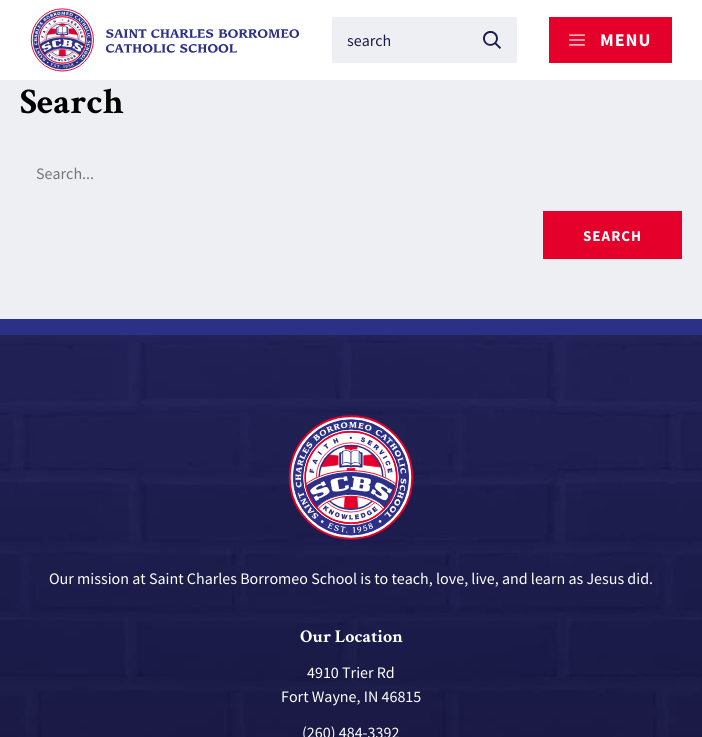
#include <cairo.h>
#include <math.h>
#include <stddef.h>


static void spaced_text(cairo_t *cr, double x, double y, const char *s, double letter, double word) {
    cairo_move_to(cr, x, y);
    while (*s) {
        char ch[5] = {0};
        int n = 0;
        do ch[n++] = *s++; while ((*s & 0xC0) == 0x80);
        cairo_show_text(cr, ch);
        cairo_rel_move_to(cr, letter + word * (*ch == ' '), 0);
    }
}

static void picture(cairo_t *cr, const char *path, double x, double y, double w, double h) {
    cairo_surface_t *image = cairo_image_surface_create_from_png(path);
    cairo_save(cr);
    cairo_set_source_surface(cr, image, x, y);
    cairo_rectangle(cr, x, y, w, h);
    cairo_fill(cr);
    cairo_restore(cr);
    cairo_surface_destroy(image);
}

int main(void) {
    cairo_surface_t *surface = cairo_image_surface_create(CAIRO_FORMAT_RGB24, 702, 737);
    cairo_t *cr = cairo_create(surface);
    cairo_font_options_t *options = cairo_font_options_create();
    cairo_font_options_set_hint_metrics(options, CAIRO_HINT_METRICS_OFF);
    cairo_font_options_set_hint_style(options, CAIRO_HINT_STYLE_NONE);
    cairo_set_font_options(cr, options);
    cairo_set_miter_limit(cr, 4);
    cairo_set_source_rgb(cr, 1, 1, 1);
    cairo_paint(cr);
    picture(cr, "img1.png", 30, 8, 270, 64);
    cairo_set_source_rgb(cr, 0.933, 0.937, 0.953);
    cairo_rectangle(cr, 332, 17, 185, 46);
    cairo_fill(cr);
    cairo_select_font_face(cr, "Source Sans Pro", CAIRO_FONT_SLANT_NORMAL, CAIRO_FONT_WEIGHT_NORMAL);
    cairo_set_font_size(cr, 16);
    cairo_set_source_rgb(cr, 0.106, 0.106, 0.306);
    cairo_move_to(cr, 347, 46);
    cairo_show_text(cr, "search");
    picture(cr, "img2.png", 483, 31, 18, 18);
    cairo_set_source_rgb(cr, 0.894, 0, 0.169);
    cairo_rectangle(cr, 549, 17, 123, 46);
    cairo_fill(cr);
    picture(cr, "img3.png", 569, 34, 16, 12);
    cairo_select_font_face(cr, "Source Sans Pro", CAIRO_FONT_SLANT_NORMAL, CAIRO_FONT_WEIGHT_BOLD);
    cairo_set_font_size(cr, 18);
    cairo_set_source_rgb(cr, 1, 1, 1);
    spaced_text(cr, 600, 46, "MENU", 1, 0);
    cairo_set_source_rgb(cr, 0.933, 0.937, 0.953);
    cairo_rectangle(cr, 0, 80, 702, 239);
    cairo_fill(cr);
    cairo_select_font_face(cr, "Crimson Text", CAIRO_FONT_SLANT_NORMAL, CAIRO_FONT_WEIGHT_BOLD);
    cairo_set_font_size(cr, 36);
    cairo_set_source_rgb(cr, 0, 0, 0);
    cairo_move_to(cr, 20, 113);
    cairo_show_text(cr, "Search");
    cairo_select_font_face(cr, "Source Sans Pro", CAIRO_FONT_SLANT_NORMAL, CAIRO_FONT_WEIGHT_NORMAL);
    cairo_set_font_size(cr, 16);
    cairo_set_source_rgb(cr, 0.459, 0.459, 0.459);
    cairo_move_to(cr, 36, 179);
    cairo_show_text(cr, "Search...");
    cairo_set_source_rgb(cr, 0.894, 0, 0.169);
    cairo_rectangle(cr, 543, 211, 139, 48);
    cairo_fill(cr);
    cairo_select_font_face(cr, "Source Sans Pro", CAIRO_FONT_SLANT_NORMAL, CAIRO_FONT_WEIGHT_BOLD);
    cairo_set_font_size(cr, 15);
    cairo_set_source_rgb(cr, 1, 1, 1);
    spaced_text(cr, 583, 241, "SEARCH", 1, 0);
    cairo_set_source_rgb(cr, 0.176, 0.188, 0.529);
    cairo_rectangle(cr, 0, 319, 702, 16);
    cairo_fill(cr);
    picture(cr, "img4.png", 0, 335, 702, 402);
    picture(cr, "img5.png", 288, 415, 126, 125);
    cairo_select_font_face(cr, "Source Sans Pro", CAIRO_FONT_SLANT_NORMAL, CAIRO_FONT_WEIGHT_NORMAL);
    cairo_set_font_size(cr, 16);
    cairo_set_source_rgb(cr, 1, 1, 1);
    cairo_move_to(cr, 49, 584);
    cairo_show_text(cr, "Our mission at Saint Charles Borromeo School is to teach, love, live, and learn as Jesus did.");
    cairo_select_font_face(cr, "Crimson Text", CAIRO_FONT_SLANT_NORMAL, CAIRO_FONT_WEIGHT_BOLD);
    cairo_set_font_size(cr, 18);
    cairo_move_to(cr, 300, 642);
    cairo_show_text(cr, "Our Location");
    cairo_select_font_face(cr, "Source Sans Pro", CAIRO_FONT_SLANT_NORMAL, CAIRO_FONT_WEIGHT_NORMAL);
    cairo_set_font_size(cr, 16);
    cairo_move_to(cr, 307, 678);
    cairo_show_text(cr, "4910 Trier Rd");
    cairo_move_to(cr, 281, 702);
    cairo_show_text(cr, "Fort Wayne, IN 46815");
    cairo_move_to(cr, 302, 738);
    cairo_show_text(cr, "(260) 484-3392");
    cairo_surface_write_to_png(surface, "page.png");
    cairo_font_options_destroy(options);
    cairo_destroy(cr);
    cairo_surface_destroy(surface);
    return 0;
}
